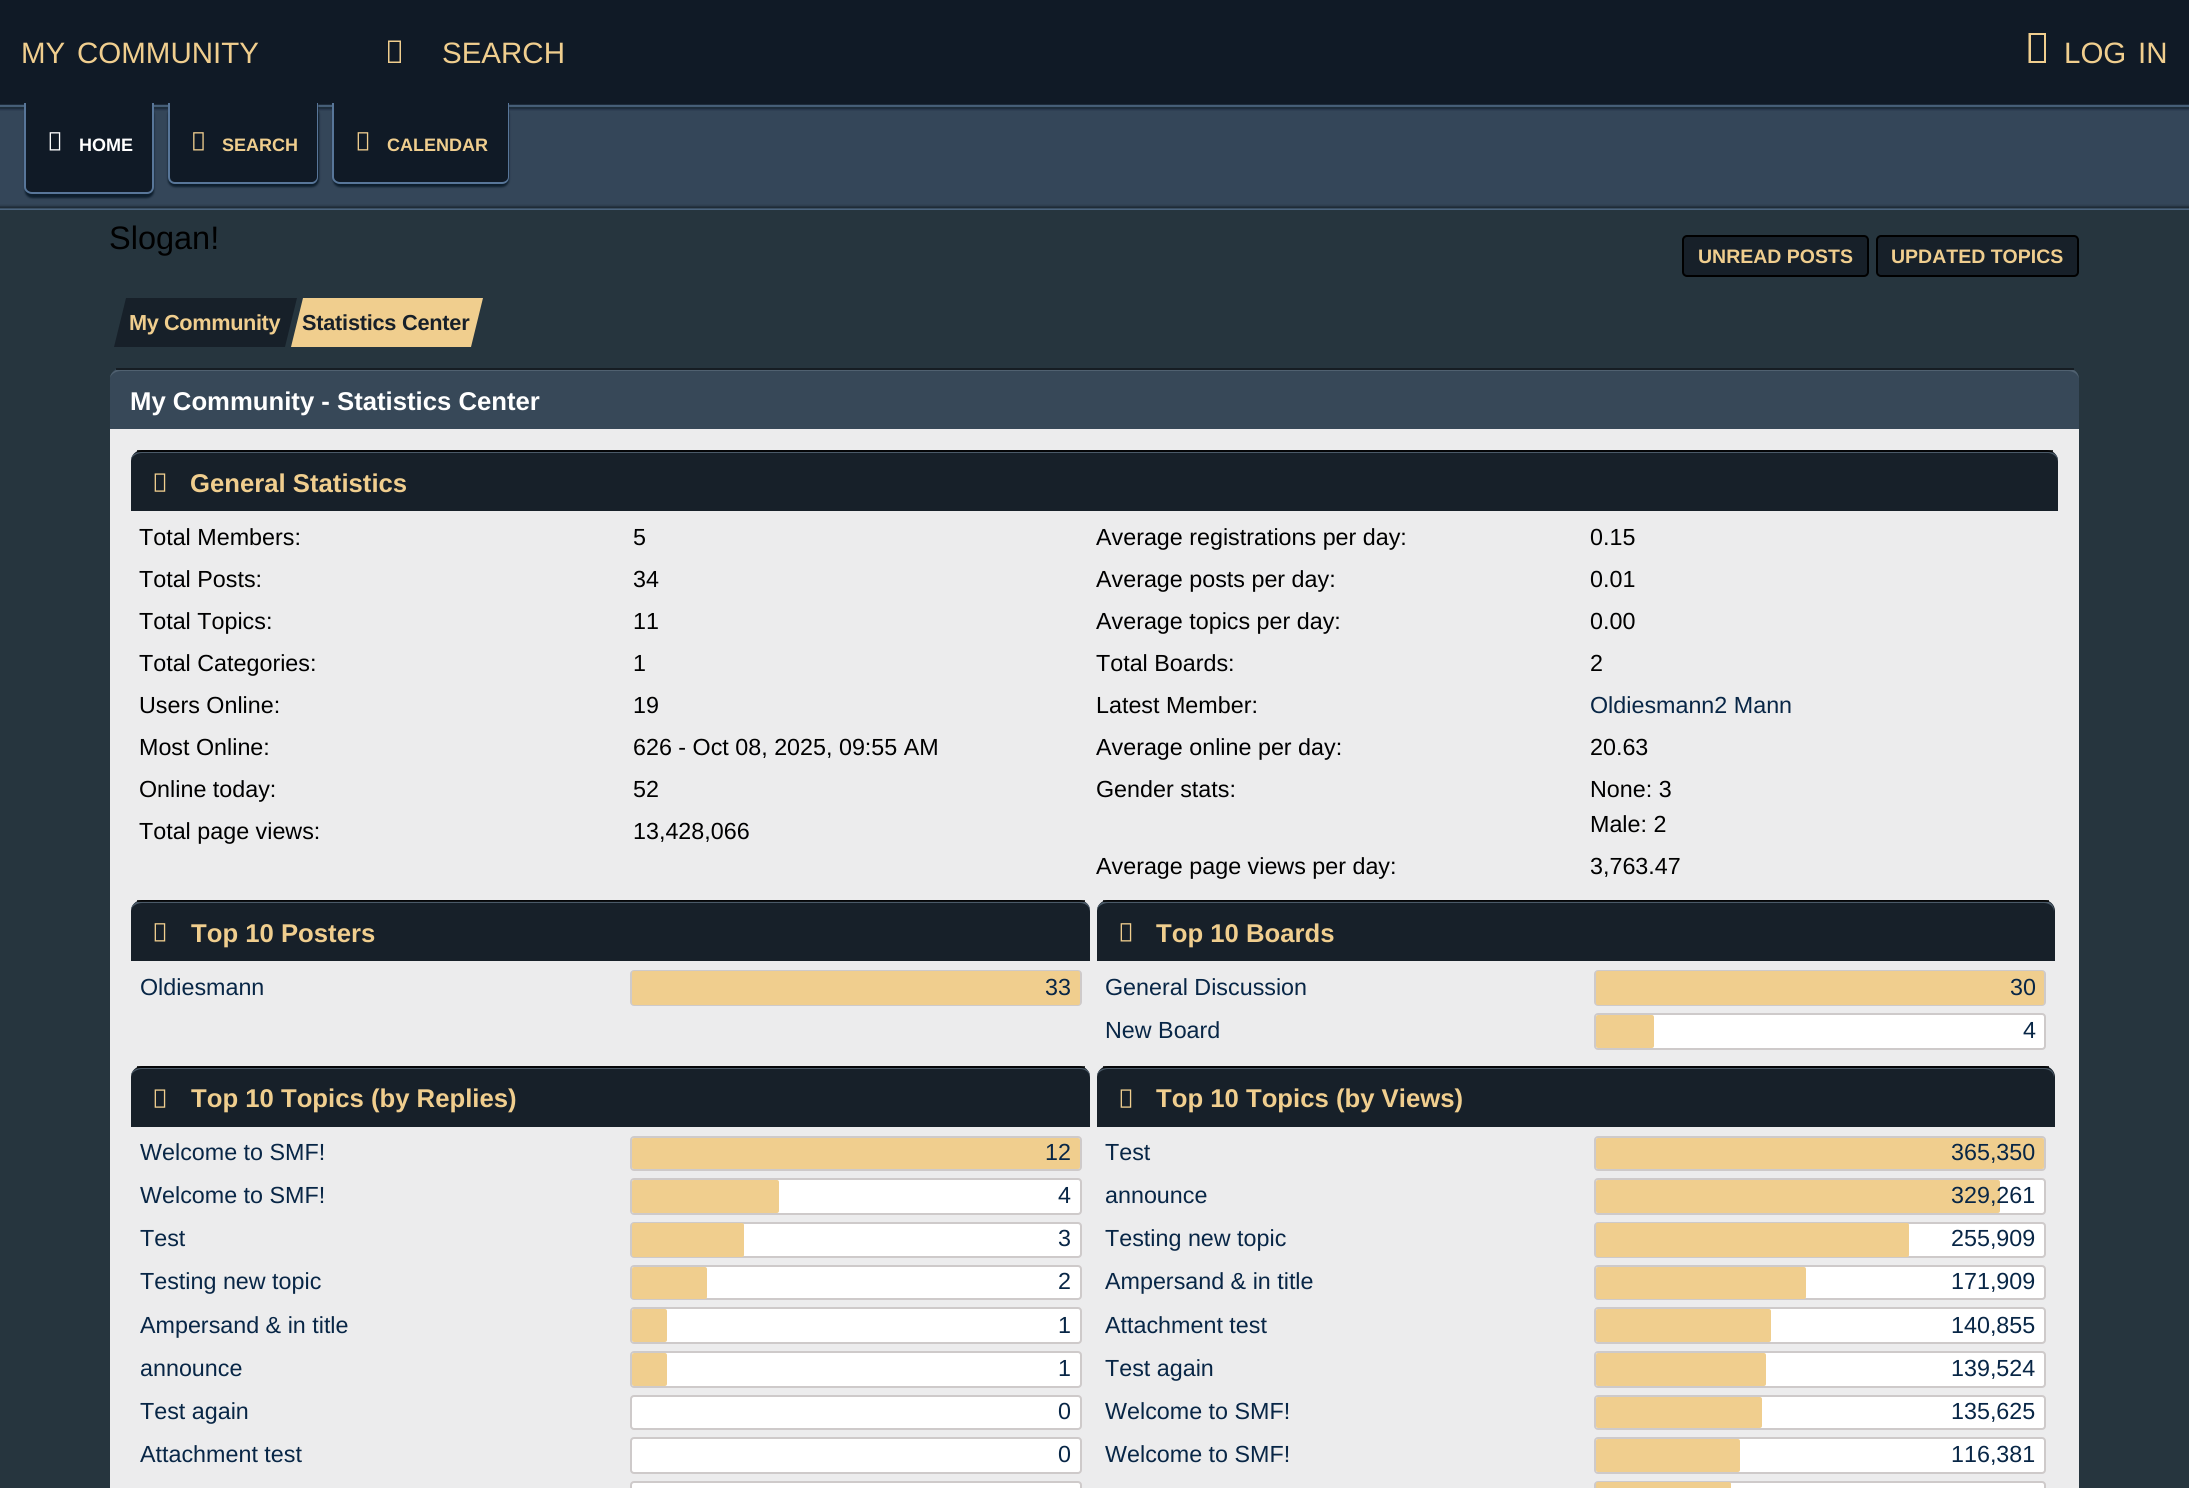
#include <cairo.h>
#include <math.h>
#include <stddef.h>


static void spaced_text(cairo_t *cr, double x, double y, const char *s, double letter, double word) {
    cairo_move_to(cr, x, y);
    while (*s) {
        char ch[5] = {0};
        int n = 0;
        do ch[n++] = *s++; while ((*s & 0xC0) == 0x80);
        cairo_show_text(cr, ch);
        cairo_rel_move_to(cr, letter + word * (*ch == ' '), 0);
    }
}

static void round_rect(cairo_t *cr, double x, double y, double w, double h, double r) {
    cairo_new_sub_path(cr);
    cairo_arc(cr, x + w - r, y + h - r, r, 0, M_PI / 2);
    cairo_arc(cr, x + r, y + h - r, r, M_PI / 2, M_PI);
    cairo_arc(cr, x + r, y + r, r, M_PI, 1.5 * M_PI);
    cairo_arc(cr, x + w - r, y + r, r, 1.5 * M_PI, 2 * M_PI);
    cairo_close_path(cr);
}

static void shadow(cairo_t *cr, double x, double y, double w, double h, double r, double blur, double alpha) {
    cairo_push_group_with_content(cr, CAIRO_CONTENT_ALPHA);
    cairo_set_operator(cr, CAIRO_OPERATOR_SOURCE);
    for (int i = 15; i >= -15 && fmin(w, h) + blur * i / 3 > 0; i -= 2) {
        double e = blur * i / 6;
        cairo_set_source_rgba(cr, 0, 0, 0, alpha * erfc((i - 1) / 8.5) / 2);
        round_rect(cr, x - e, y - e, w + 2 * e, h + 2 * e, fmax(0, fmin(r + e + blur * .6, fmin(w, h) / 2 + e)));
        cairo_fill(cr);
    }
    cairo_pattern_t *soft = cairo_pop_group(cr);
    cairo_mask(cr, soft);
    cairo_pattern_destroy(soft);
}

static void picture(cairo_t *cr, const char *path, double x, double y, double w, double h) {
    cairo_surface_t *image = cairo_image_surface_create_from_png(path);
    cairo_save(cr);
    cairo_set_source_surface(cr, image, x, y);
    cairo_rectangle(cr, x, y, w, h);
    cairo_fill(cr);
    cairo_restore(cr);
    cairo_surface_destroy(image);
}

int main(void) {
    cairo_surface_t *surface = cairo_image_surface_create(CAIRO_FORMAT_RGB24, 2189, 1488);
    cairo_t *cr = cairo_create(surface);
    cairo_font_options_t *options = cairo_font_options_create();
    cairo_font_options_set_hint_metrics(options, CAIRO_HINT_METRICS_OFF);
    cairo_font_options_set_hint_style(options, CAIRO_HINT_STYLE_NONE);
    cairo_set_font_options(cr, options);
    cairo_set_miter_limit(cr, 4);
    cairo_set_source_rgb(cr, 0.149, 0.208, 0.243);
    cairo_paint(cr);
    picture(cr, "img1.png", 0, 0, 2189, 210);
    cairo_select_font_face(cr, "Liberation Sans", CAIRO_FONT_SLANT_NORMAL, CAIRO_FONT_WEIGHT_NORMAL);
    cairo_set_font_size(cr, 29.5);
    cairo_set_source_rgb(cr, 0.941, 0.808, 0.557);
    cairo_move_to(cr, 21, 63);
    cairo_show_text(cr, "MY");
    cairo_move_to(cr, 77, 63);
    cairo_show_text(cr, "COMMUNITY");
    cairo_new_path(cr);
    cairo_move_to(cr, 388, 63);
    cairo_line_to(cr, 388, 40.5);
    cairo_line_to(cr, 401, 40.5);
    cairo_line_to(cr, 401, 63);
    cairo_close_path(cr);
    cairo_move_to(cr, 389.5, 61.5);
    cairo_line_to(cr, 399.5, 61.5);
    cairo_line_to(cr, 399.5, 42);
    cairo_line_to(cr, 389.5, 42);
    cairo_close_path(cr);
    cairo_fill(cr);
    cairo_move_to(cr, 442, 63);
    cairo_show_text(cr, "SEARCH");
    cairo_new_path(cr);
    cairo_move_to(cr, 2028.5, 63);
    cairo_line_to(cr, 2028.5, 33);
    cairo_line_to(cr, 2046, 33);
    cairo_line_to(cr, 2046, 63);
    cairo_close_path(cr);
    cairo_move_to(cr, 2031, 61);
    cairo_line_to(cr, 2044, 61);
    cairo_line_to(cr, 2044, 35);
    cairo_line_to(cr, 2031, 35);
    cairo_close_path(cr);
    cairo_fill(cr);
    cairo_move_to(cr, 2064, 63);
    cairo_show_text(cr, "LOG");
    cairo_move_to(cr, 2138, 63);
    cairo_show_text(cr, "IN");
    cairo_set_source_rgb(cr, 0.051, 0.118, 0.176);
    shadow(cr, 25, 107, 129, 91, 7, 1, 1);
    picture(cr, "img2.png", 24, 104, 130, 90);
    cairo_set_source_rgb(cr, 0.345, 0.463, 0.6);
    cairo_set_fill_rule(cr, CAIRO_FILL_RULE_EVEN_ODD);
    cairo_new_path(cr);
    cairo_move_to(cr, 24, 103);
    cairo_line_to(cr, 154, 103);
    cairo_line_to(cr, 154, 187);
    cairo_curve_to(cr, 154, 191, 151, 194, 147, 194);
    cairo_line_to(cr, 32, 194);
    cairo_curve_to(cr, 28, 194, 24, 191, 24, 187);
    cairo_close_path(cr);
    cairo_move_to(cr, 26, 103);
    cairo_line_to(cr, 152, 103);
    cairo_line_to(cr, 152, 187);
    cairo_curve_to(cr, 152, 190, 150, 192, 147, 192);
    cairo_line_to(cr, 32, 192);
    cairo_curve_to(cr, 29, 192, 26, 190, 26, 187);
    cairo_close_path(cr);
    cairo_fill(cr);
    picture(cr, "img3.png", 49, 132, 12, 19);
    cairo_select_font_face(cr, "Liberation Sans", CAIRO_FONT_SLANT_NORMAL, CAIRO_FONT_WEIGHT_BOLD);
    cairo_set_font_size(cr, 18);
    cairo_set_source_rgb(cr, 1, 1, 1);
    cairo_move_to(cr, 79, 151);
    cairo_show_text(cr, "HOME");
    cairo_set_source_rgb(cr, 0.051, 0.118, 0.176);
    shadow(cr, 168, 107, 151, 80, 7, 1, 1);
    picture(cr, "img4.png", 168, 104, 151, 80);
    cairo_set_source_rgb(cr, 0.345, 0.463, 0.6);
    cairo_new_path(cr);
    cairo_move_to(cr, 168, 103);
    cairo_line_to(cr, 318, 103);
    cairo_line_to(cr, 318, 177);
    cairo_curve_to(cr, 318, 181, 315, 184, 312, 184);
    cairo_line_to(cr, 175, 184);
    cairo_curve_to(cr, 171, 184, 168, 181, 168, 177);
    cairo_close_path(cr);
    cairo_move_to(cr, 170, 103);
    cairo_line_to(cr, 317, 103);
    cairo_line_to(cr, 317, 177);
    cairo_curve_to(cr, 317, 180, 314, 182, 312, 182);
    cairo_line_to(cr, 175, 182);
    cairo_curve_to(cr, 172, 182, 170, 180, 170, 177);
    cairo_close_path(cr);
    cairo_fill(cr);
    picture(cr, "img5.png", 193, 132, 11, 19);
    cairo_set_source_rgb(cr, 0.941, 0.808, 0.557);
    cairo_move_to(cr, 222, 151);
    cairo_show_text(cr, "SEARCH");
    cairo_set_source_rgb(cr, 0.051, 0.118, 0.176);
    shadow(cr, 333, 107, 176, 80, 7, 1, 1);
    picture(cr, "img6.png", 332, 104, 178, 80);
    cairo_set_source_rgb(cr, 0.345, 0.463, 0.6);
    cairo_new_path(cr);
    cairo_move_to(cr, 332, 103);
    cairo_line_to(cr, 509, 103);
    cairo_line_to(cr, 509, 177);
    cairo_curve_to(cr, 509, 181, 506, 184, 502, 184);
    cairo_line_to(cr, 340, 184);
    cairo_curve_to(cr, 336, 184, 332, 181, 332, 177);
    cairo_close_path(cr);
    cairo_move_to(cr, 334, 103);
    cairo_line_to(cr, 508, 103);
    cairo_line_to(cr, 508, 177);
    cairo_curve_to(cr, 508, 180, 505, 182, 502, 182);
    cairo_line_to(cr, 340, 182);
    cairo_curve_to(cr, 337, 182, 334, 180, 334, 177);
    cairo_close_path(cr);
    cairo_fill(cr);
    picture(cr, "img7.png", 357, 132, 12, 19);
    cairo_set_source_rgb(cr, 0.941, 0.808, 0.557);
    cairo_move_to(cr, 387, 151);
    cairo_show_text(cr, "CALENDAR");
    cairo_select_font_face(cr, "Liberation Sans", CAIRO_FONT_SLANT_NORMAL, CAIRO_FONT_WEIGHT_NORMAL);
    cairo_set_font_size(cr, 32.5);
    cairo_set_source_rgb(cr, 0, 0, 0);
    cairo_move_to(cr, 109, 249);
    cairo_show_text(cr, "Slogan!");
    cairo_set_source_rgb(cr, 0.09, 0.125, 0.161);
    round_rect(cr, 1683, 236, 185, 40, 4);
    cairo_fill_preserve(cr);
    cairo_set_source_rgb(cr, 0, 0, 0);
    cairo_stroke(cr);
    cairo_select_font_face(cr, "Liberation Sans", CAIRO_FONT_SLANT_NORMAL, CAIRO_FONT_WEIGHT_BOLD);
    cairo_set_font_size(cr, 19.5);
    cairo_set_source_rgb(cr, 0.941, 0.808, 0.557);
    cairo_move_to(cr, 1698, 263);
    cairo_show_text(cr, "UNREAD POSTS");
    cairo_set_source_rgb(cr, 0.09, 0.125, 0.161);
    round_rect(cr, 1877, 236, 201, 40, 4);
    cairo_fill_preserve(cr);
    cairo_set_source_rgb(cr, 0, 0, 0);
    cairo_stroke(cr);
    cairo_set_source_rgb(cr, 0.941, 0.808, 0.557);
    cairo_move_to(cr, 1891, 263);
    cairo_show_text(cr, "UPDATED TOPICS");
    cairo_set_source_rgb(cr, 0.09, 0.125, 0.161);
    cairo_set_fill_rule(cr, CAIRO_FILL_RULE_WINDING);
    cairo_new_path(cr);
    cairo_move_to(cr, 126, 298);
    cairo_line_to(cr, 297, 298);
    cairo_line_to(cr, 285, 347);
    cairo_line_to(cr, 114, 347);
    cairo_close_path(cr);
    cairo_fill(cr);
    cairo_set_font_size(cr, 21.75);
    cairo_set_source_rgb(cr, 0.941, 0.808, 0.557);
    spaced_text(cr, 129, 330, "My Community", -0.4, 0);
    cairo_new_path(cr);
    cairo_move_to(cr, 303, 298);
    cairo_line_to(cr, 483, 298);
    cairo_line_to(cr, 471, 347);
    cairo_line_to(cr, 291, 347);
    cairo_close_path(cr);
    cairo_fill(cr);
    cairo_set_source_rgb(cr, 0.09, 0.125, 0.161);
    spaced_text(cr, 302, 330, "Statistics Center", -0.25, 0);
    cairo_set_source_rgb(cr, 0.216, 0.282, 0.345);
    cairo_new_path(cr);
    cairo_move_to(cr, 121, 368);
    cairo_line_to(cr, 2068, 368);
    cairo_curve_to(cr, 2074, 368, 2079, 373, 2079, 379);
    cairo_line_to(cr, 2079, 429);
    cairo_line_to(cr, 110, 429);
    cairo_line_to(cr, 110, 379);
    cairo_curve_to(cr, 110, 373, 115, 368, 121, 368);
    cairo_close_path(cr);
    cairo_fill(cr);
    cairo_set_source_rgb(cr, 0.314, 0.38, 0.439);
    cairo_new_path(cr);
    cairo_move_to(cr, 121, 371);
    cairo_line_to(cr, 2068, 371);
    cairo_curve_to(cr, 2074, 371, 2079, 375, 2079, 380);
    cairo_curve_to(cr, 2079, 373, 2075, 369, 2068, 369);
    cairo_line_to(cr, 121, 369);
    cairo_curve_to(cr, 116, 369, 110, 373, 110, 378);
    cairo_curve_to(cr, 111, 374, 116, 371, 121, 371);
    cairo_close_path(cr);
    cairo_fill(cr);
    cairo_set_source_rgb(cr, 0.086, 0.114, 0.137);
    cairo_rectangle(cr, 116, 368, 1958, 2);
    cairo_fill(cr);
    cairo_set_font_size(cr, 25.7);
    cairo_set_source_rgb(cr, 1, 1, 1);
    cairo_move_to(cr, 130, 410);
    cairo_show_text(cr, "My Community - Statistics Center");
    cairo_set_source_rgb(cr, 0.922, 0.925, 0.929);
    cairo_rectangle(cr, 110, 429, 1969, 1059);
    cairo_fill(cr);
    cairo_set_source_rgb(cr, 0.09, 0.125, 0.161);
    cairo_new_path(cr);
    cairo_move_to(cr, 142, 450);
    cairo_line_to(cr, 2047, 450);
    cairo_curve_to(cr, 2053, 450, 2058, 455, 2058, 461);
    cairo_line_to(cr, 2058, 511);
    cairo_line_to(cr, 131, 511);
    cairo_line_to(cr, 131, 461);
    cairo_curve_to(cr, 131, 455, 136, 450, 142, 450);
    cairo_close_path(cr);
    cairo_fill(cr);
    cairo_set_source_rgb(cr, 0.294, 0.353, 0.408);
    cairo_new_path(cr);
    cairo_move_to(cr, 142, 453);
    cairo_line_to(cr, 2048, 453);
    cairo_curve_to(cr, 2053, 453, 2058, 457, 2058, 462);
    cairo_line_to(cr, 2058, 460);
    cairo_curve_to(cr, 2058, 455, 2053, 452, 2048, 452);
    cairo_line_to(cr, 142, 452);
    cairo_curve_to(cr, 136, 452, 131, 455, 131, 460);
    cairo_curve_to(cr, 132, 456, 137, 453, 142, 453);
    cairo_close_path(cr);
    cairo_fill(cr);
    cairo_set_source_rgba(cr, 0, 0, 0, 0.8);
    cairo_rectangle(cr, 137, 450, 1916, 2);
    cairo_fill(cr);
    picture(cr, "img8.png", 154, 473, 12, 19);
    cairo_set_source_rgb(cr, 0.941, 0.808, 0.557);
    cairo_move_to(cr, 190, 492);
    cairo_show_text(cr, "General Statistics");
    cairo_select_font_face(cr, "Liberation Sans", CAIRO_FONT_SLANT_NORMAL, CAIRO_FONT_WEIGHT_NORMAL);
    cairo_set_font_size(cr, 23.3);
    cairo_set_source_rgb(cr, 0, 0, 0);
    cairo_move_to(cr, 139, 545);
    cairo_show_text(cr, "Total Members:");
    cairo_move_to(cr, 633, 545);
    cairo_show_text(cr, "5");
    cairo_move_to(cr, 139, 587);
    cairo_show_text(cr, "Total Posts:");
    cairo_move_to(cr, 633, 587);
    cairo_show_text(cr, "34");
    cairo_move_to(cr, 139, 629);
    cairo_show_text(cr, "Total Topics:");
    cairo_move_to(cr, 633, 629);
    cairo_show_text(cr, "11");
    cairo_move_to(cr, 139, 671);
    cairo_show_text(cr, "Total Categories:");
    cairo_move_to(cr, 633, 671);
    cairo_show_text(cr, "1");
    cairo_move_to(cr, 139, 713);
    cairo_show_text(cr, "Users Online:");
    cairo_move_to(cr, 633, 713);
    cairo_show_text(cr, "19");
    cairo_move_to(cr, 139, 755);
    cairo_show_text(cr, "Most Online:");
    cairo_move_to(cr, 633, 755);
    cairo_show_text(cr, "626 - Oct 08, 2025, 09:55 AM");
    cairo_move_to(cr, 139, 797);
    cairo_show_text(cr, "Online today:");
    cairo_move_to(cr, 633, 797);
    cairo_show_text(cr, "52");
    cairo_move_to(cr, 139, 839);
    cairo_show_text(cr, "Total page views:");
    cairo_move_to(cr, 633, 839);
    cairo_show_text(cr, "13,428,066");
    cairo_move_to(cr, 1096, 545);
    cairo_show_text(cr, "Average registrations per day:");
    cairo_move_to(cr, 1590, 545);
    cairo_show_text(cr, "0.15");
    cairo_move_to(cr, 1096, 587);
    cairo_show_text(cr, "Average posts per day:");
    cairo_move_to(cr, 1590, 587);
    cairo_show_text(cr, "0.01");
    cairo_move_to(cr, 1096, 629);
    cairo_show_text(cr, "Average topics per day:");
    cairo_move_to(cr, 1590, 629);
    cairo_show_text(cr, "0.00");
    cairo_move_to(cr, 1096, 671);
    cairo_show_text(cr, "Total Boards:");
    cairo_move_to(cr, 1590, 671);
    cairo_show_text(cr, "2");
    cairo_move_to(cr, 1096, 713);
    cairo_show_text(cr, "Latest Member:");
    cairo_set_source_rgb(cr, 0.035, 0.149, 0.275);
    cairo_move_to(cr, 1590, 713);
    cairo_show_text(cr, "Oldiesmann2 Mann");
    cairo_set_source_rgb(cr, 0, 0, 0);
    cairo_move_to(cr, 1096, 755);
    cairo_show_text(cr, "Average online per day:");
    cairo_move_to(cr, 1590, 755);
    cairo_show_text(cr, "20.63");
    cairo_move_to(cr, 1096, 797);
    cairo_show_text(cr, "Gender stats:");
    cairo_move_to(cr, 1590, 797);
    cairo_show_text(cr, "None: 3");
    cairo_move_to(cr, 1590, 832);
    cairo_show_text(cr, "Male: 2");
    cairo_move_to(cr, 1096, 874);
    cairo_show_text(cr, "Average page views per day:");
    cairo_move_to(cr, 1590, 874);
    cairo_show_text(cr, "3,763.47");
    cairo_set_source_rgb(cr, 0.09, 0.125, 0.161);
    cairo_new_path(cr);
    cairo_move_to(cr, 142, 900);
    cairo_line_to(cr, 1079, 900);
    cairo_curve_to(cr, 1085, 900, 1090, 905, 1090, 911);
    cairo_line_to(cr, 1090, 961);
    cairo_line_to(cr, 131, 961);
    cairo_line_to(cr, 131, 911);
    cairo_curve_to(cr, 131, 905, 136, 900, 142, 900);
    cairo_close_path(cr);
    cairo_fill(cr);
    cairo_set_source_rgb(cr, 0.294, 0.353, 0.408);
    cairo_new_path(cr);
    cairo_move_to(cr, 142, 903);
    cairo_line_to(cr, 1080, 903);
    cairo_curve_to(cr, 1086, 903, 1090, 907, 1090, 912);
    cairo_line_to(cr, 1090, 961);
    cairo_line_to(cr, 1090, 910);
    cairo_curve_to(cr, 1090, 905, 1086, 901, 1080, 901);
    cairo_line_to(cr, 142, 901);
    cairo_curve_to(cr, 136, 901, 131, 905, 131, 910);
    cairo_curve_to(cr, 132, 906, 137, 903, 142, 903);
    cairo_close_path(cr);
    cairo_fill(cr);
    cairo_set_source_rgba(cr, 0, 0, 0, 0.8);
    cairo_rectangle(cr, 137, 900, 948, 2);
    cairo_fill(cr);
    picture(cr, "img9.png", 154, 923, 12, 19);
    cairo_select_font_face(cr, "Liberation Sans", CAIRO_FONT_SLANT_NORMAL, CAIRO_FONT_WEIGHT_BOLD);
    cairo_set_font_size(cr, 25.7);
    cairo_set_source_rgb(cr, 0.941, 0.808, 0.557);
    cairo_move_to(cr, 191, 942);
    cairo_show_text(cr, "Top 10 Posters");
    cairo_select_font_face(cr, "Liberation Sans", CAIRO_FONT_SLANT_NORMAL, CAIRO_FONT_WEIGHT_NORMAL);
    cairo_set_font_size(cr, 23.3);
    cairo_set_source_rgb(cr, 0.035, 0.149, 0.275);
    cairo_move_to(cr, 140, 995);
    cairo_show_text(cr, "Oldiesmann");
    round_rect(cr, 631, 971, 450, 34, 3);
    cairo_set_source_rgb(cr, 0.808, 0.792, 0.792);
    cairo_stroke(cr);
    cairo_set_source_rgb(cr, 0.941, 0.808, 0.557);
    round_rect(cr, 632, 971, 448, 34, 2);
    cairo_fill(cr);
    cairo_set_source_rgb(cr, 0.035, 0.149, 0.275);
    cairo_move_to(cr, 1045, 995);
    cairo_show_text(cr, "33");
    cairo_set_source_rgb(cr, 0.09, 0.125, 0.161);
    cairo_new_path(cr);
    cairo_move_to(cr, 1108, 900);
    cairo_line_to(cr, 2044, 900);
    cairo_curve_to(cr, 2050, 900, 2055, 905, 2055, 911);
    cairo_line_to(cr, 2055, 961);
    cairo_line_to(cr, 1097, 961);
    cairo_line_to(cr, 1097, 911);
    cairo_curve_to(cr, 1097, 905, 1102, 900, 1108, 900);
    cairo_close_path(cr);
    cairo_fill(cr);
    cairo_set_source_rgb(cr, 0.294, 0.353, 0.408);
    cairo_new_path(cr);
    cairo_move_to(cr, 1108, 903);
    cairo_line_to(cr, 2044, 903);
    cairo_curve_to(cr, 2050, 903, 2054, 907, 2054, 912);
    cairo_line_to(cr, 2054, 961);
    cairo_line_to(cr, 2054, 910);
    cairo_curve_to(cr, 2054, 905, 2050, 901, 2044, 901);
    cairo_line_to(cr, 1108, 901);
    cairo_curve_to(cr, 1102, 901, 1097, 905, 1097, 910);
    cairo_curve_to(cr, 1098, 906, 1103, 903, 1108, 903);
    cairo_close_path(cr);
    cairo_fill(cr);
    cairo_set_source_rgba(cr, 0, 0, 0, 0.8);
    cairo_rectangle(cr, 1103, 900, 946, 2);
    cairo_fill(cr);
    picture(cr, "img9.png", 1120, 923, 12, 19);
    cairo_select_font_face(cr, "Liberation Sans", CAIRO_FONT_SLANT_NORMAL, CAIRO_FONT_WEIGHT_BOLD);
    cairo_set_font_size(cr, 25.7);
    cairo_set_source_rgb(cr, 0.941, 0.808, 0.557);
    cairo_move_to(cr, 1156, 942);
    cairo_show_text(cr, "Top 10 Boards");
    cairo_select_font_face(cr, "Liberation Sans", CAIRO_FONT_SLANT_NORMAL, CAIRO_FONT_WEIGHT_NORMAL);
    cairo_set_font_size(cr, 23.3);
    cairo_set_source_rgb(cr, 0.035, 0.149, 0.275);
    cairo_move_to(cr, 1105, 995);
    cairo_show_text(cr, "General Discussion");
    round_rect(cr, 1595, 971, 450, 34, 3);
    cairo_set_source_rgb(cr, 0.808, 0.792, 0.792);
    cairo_stroke(cr);
    cairo_set_source_rgb(cr, 0.941, 0.808, 0.557);
    round_rect(cr, 1596, 971, 448, 34, 2);
    cairo_fill(cr);
    cairo_set_source_rgb(cr, 0.035, 0.149, 0.275);
    cairo_move_to(cr, 2010, 995);
    cairo_show_text(cr, "30");
    cairo_move_to(cr, 1105, 1038);
    cairo_show_text(cr, "New Board");
    cairo_set_source_rgb(cr, 1, 1, 1);
    round_rect(cr, 1595, 1014, 450, 35, 3);
    cairo_fill_preserve(cr);
    cairo_set_source_rgb(cr, 0.808, 0.792, 0.792);
    cairo_stroke(cr);
    cairo_set_source_rgb(cr, 0.941, 0.808, 0.557);
    round_rect(cr, 1596, 1015, 58, 33, 2);
    cairo_fill(cr);
    cairo_set_source_rgb(cr, 0.035, 0.149, 0.275);
    cairo_move_to(cr, 2023, 1038);
    cairo_show_text(cr, "4");
    cairo_set_source_rgb(cr, 0.09, 0.125, 0.161);
    cairo_new_path(cr);
    cairo_move_to(cr, 142, 1066);
    cairo_line_to(cr, 1079, 1066);
    cairo_curve_to(cr, 1085, 1066, 1090, 1071, 1090, 1077);
    cairo_line_to(cr, 1090, 1127);
    cairo_line_to(cr, 131, 1127);
    cairo_line_to(cr, 131, 1077);
    cairo_curve_to(cr, 131, 1071, 136, 1066, 142, 1066);
    cairo_close_path(cr);
    cairo_fill(cr);
    cairo_set_source_rgb(cr, 0.294, 0.353, 0.408);
    cairo_new_path(cr);
    cairo_move_to(cr, 142, 1069);
    cairo_line_to(cr, 1080, 1069);
    cairo_curve_to(cr, 1086, 1069, 1090, 1073, 1090, 1078);
    cairo_line_to(cr, 1090, 1127);
    cairo_line_to(cr, 1090, 1076);
    cairo_curve_to(cr, 1090, 1071, 1086, 1068, 1080, 1068);
    cairo_line_to(cr, 142, 1068);
    cairo_curve_to(cr, 136, 1068, 131, 1071, 131, 1076);
    cairo_curve_to(cr, 132, 1072, 137, 1069, 142, 1069);
    cairo_close_path(cr);
    cairo_fill(cr);
    cairo_set_source_rgba(cr, 0, 0, 0, 0.8);
    cairo_rectangle(cr, 137, 1066, 948, 2);
    cairo_fill(cr);
    picture(cr, "img8.png", 154, 1089, 12, 19);
    cairo_select_font_face(cr, "Liberation Sans", CAIRO_FONT_SLANT_NORMAL, CAIRO_FONT_WEIGHT_BOLD);
    cairo_set_font_size(cr, 25.7);
    cairo_set_source_rgb(cr, 0.941, 0.808, 0.557);
    cairo_move_to(cr, 191, 1107);
    cairo_show_text(cr, "Top 10 Topics (by Replies)");
    cairo_select_font_face(cr, "Liberation Sans", CAIRO_FONT_SLANT_NORMAL, CAIRO_FONT_WEIGHT_NORMAL);
    cairo_set_font_size(cr, 23.3);
    cairo_set_source_rgb(cr, 0.035, 0.149, 0.275);
    cairo_move_to(cr, 140, 1160);
    cairo_show_text(cr, "Welcome to SMF!");
    round_rect(cr, 631, 1137, 450, 33, 3);
    cairo_set_source_rgb(cr, 0.808, 0.792, 0.792);
    cairo_stroke(cr);
    cairo_set_source_rgb(cr, 0.941, 0.808, 0.557);
    round_rect(cr, 632, 1138, 448, 31, 2);
    cairo_fill(cr);
    cairo_set_source_rgb(cr, 0.035, 0.149, 0.275);
    cairo_move_to(cr, 1045, 1160);
    cairo_show_text(cr, "12");
    cairo_move_to(cr, 140, 1203);
    cairo_show_text(cr, "Welcome to SMF!");
    cairo_set_source_rgb(cr, 1, 1, 1);
    round_rect(cr, 631, 1179, 450, 35, 3);
    cairo_fill_preserve(cr);
    cairo_set_source_rgb(cr, 0.808, 0.792, 0.792);
    cairo_stroke(cr);
    cairo_set_source_rgb(cr, 0.941, 0.808, 0.557);
    round_rect(cr, 632, 1180, 147, 33, 2);
    cairo_fill(cr);
    cairo_set_source_rgb(cr, 0.035, 0.149, 0.275);
    cairo_move_to(cr, 1058, 1203);
    cairo_show_text(cr, "4");
    cairo_move_to(cr, 140, 1246);
    cairo_show_text(cr, "Test");
    cairo_set_source_rgb(cr, 1, 1, 1);
    round_rect(cr, 631, 1223, 450, 34, 3);
    cairo_fill_preserve(cr);
    cairo_set_source_rgb(cr, 0.808, 0.792, 0.792);
    cairo_stroke(cr);
    cairo_set_source_rgb(cr, 0.941, 0.808, 0.557);
    round_rect(cr, 632, 1223, 112, 34, 2);
    cairo_fill(cr);
    cairo_set_source_rgb(cr, 0.035, 0.149, 0.275);
    cairo_move_to(cr, 1058, 1246);
    cairo_show_text(cr, "3");
    cairo_move_to(cr, 140, 1289);
    cairo_show_text(cr, "Testing new topic");
    cairo_set_source_rgb(cr, 1, 1, 1);
    round_rect(cr, 631, 1266, 450, 33, 3);
    cairo_fill_preserve(cr);
    cairo_set_source_rgb(cr, 0.808, 0.792, 0.792);
    cairo_stroke(cr);
    cairo_set_source_rgb(cr, 0.941, 0.808, 0.557);
    round_rect(cr, 632, 1267, 75, 32, 2);
    cairo_fill(cr);
    cairo_set_source_rgb(cr, 0.035, 0.149, 0.275);
    cairo_move_to(cr, 1058, 1289);
    cairo_show_text(cr, "2");
    cairo_move_to(cr, 140, 1333);
    cairo_show_text(cr, "Ampersand & in title");
    cairo_set_source_rgb(cr, 1, 1, 1);
    round_rect(cr, 631, 1308, 450, 35, 3);
    cairo_fill_preserve(cr);
    cairo_set_source_rgb(cr, 0.808, 0.792, 0.792);
    cairo_stroke(cr);
    cairo_set_source_rgb(cr, 0.941, 0.808, 0.557);
    round_rect(cr, 632, 1309, 35, 33, 2);
    cairo_fill(cr);
    cairo_set_source_rgb(cr, 0.035, 0.149, 0.275);
    cairo_move_to(cr, 1058, 1333);
    cairo_show_text(cr, "1");
    cairo_move_to(cr, 140, 1376);
    cairo_show_text(cr, "announce");
    cairo_set_source_rgb(cr, 1, 1, 1);
    round_rect(cr, 631, 1352, 450, 35, 3);
    cairo_fill_preserve(cr);
    cairo_set_source_rgb(cr, 0.808, 0.792, 0.792);
    cairo_stroke(cr);
    cairo_set_source_rgb(cr, 0.941, 0.808, 0.557);
    round_rect(cr, 632, 1353, 35, 33, 2);
    cairo_fill(cr);
    cairo_set_source_rgb(cr, 0.035, 0.149, 0.275);
    cairo_move_to(cr, 1058, 1376);
    cairo_show_text(cr, "1");
    cairo_move_to(cr, 140, 1419);
    cairo_show_text(cr, "Test again");
    cairo_set_source_rgb(cr, 1, 1, 1);
    round_rect(cr, 631, 1396, 450, 33, 3);
    cairo_fill_preserve(cr);
    cairo_set_source_rgb(cr, 0.808, 0.792, 0.792);
    cairo_stroke(cr);
    cairo_set_source_rgb(cr, 0.035, 0.149, 0.275);
    cairo_move_to(cr, 1058, 1419);
    cairo_show_text(cr, "0");
    cairo_move_to(cr, 140, 1462);
    cairo_show_text(cr, "Attachment test");
    cairo_set_source_rgb(cr, 1, 1, 1);
    round_rect(cr, 631, 1438, 450, 35, 3);
    cairo_fill_preserve(cr);
    cairo_set_source_rgb(cr, 0.808, 0.792, 0.792);
    cairo_stroke(cr);
    cairo_set_source_rgb(cr, 0.035, 0.149, 0.275);
    cairo_move_to(cr, 1058, 1462);
    cairo_show_text(cr, "0");
    cairo_set_source_rgb(cr, 1, 1, 1);
    round_rect(cr, 631, 1482, 450, 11, 3);
    cairo_fill_preserve(cr);
    cairo_set_source_rgb(cr, 0.808, 0.792, 0.792);
    cairo_stroke(cr);
    cairo_set_source_rgb(cr, 0.09, 0.125, 0.161);
    cairo_new_path(cr);
    cairo_move_to(cr, 1108, 1066);
    cairo_line_to(cr, 2044, 1066);
    cairo_curve_to(cr, 2050, 1066, 2055, 1071, 2055, 1077);
    cairo_line_to(cr, 2055, 1127);
    cairo_line_to(cr, 1097, 1127);
    cairo_line_to(cr, 1097, 1077);
    cairo_curve_to(cr, 1097, 1071, 1102, 1066, 1108, 1066);
    cairo_close_path(cr);
    cairo_fill(cr);
    cairo_set_source_rgb(cr, 0.294, 0.353, 0.408);
    cairo_new_path(cr);
    cairo_move_to(cr, 1108, 1069);
    cairo_line_to(cr, 2044, 1069);
    cairo_curve_to(cr, 2050, 1069, 2054, 1073, 2054, 1078);
    cairo_line_to(cr, 2054, 1127);
    cairo_line_to(cr, 2054, 1076);
    cairo_curve_to(cr, 2054, 1071, 2050, 1068, 2044, 1068);
    cairo_line_to(cr, 1108, 1068);
    cairo_curve_to(cr, 1102, 1068, 1097, 1071, 1097, 1076);
    cairo_curve_to(cr, 1098, 1072, 1103, 1069, 1108, 1069);
    cairo_close_path(cr);
    cairo_fill(cr);
    cairo_set_source_rgba(cr, 0, 0, 0, 0.8);
    cairo_rectangle(cr, 1103, 1066, 946, 2);
    cairo_fill(cr);
    picture(cr, "img8.png", 1120, 1089, 12, 19);
    cairo_select_font_face(cr, "Liberation Sans", CAIRO_FONT_SLANT_NORMAL, CAIRO_FONT_WEIGHT_BOLD);
    cairo_set_font_size(cr, 25.7);
    cairo_set_source_rgb(cr, 0.941, 0.808, 0.557);
    cairo_move_to(cr, 1156, 1107);
    cairo_show_text(cr, "Top 10 Topics (by Views)");
    cairo_select_font_face(cr, "Liberation Sans", CAIRO_FONT_SLANT_NORMAL, CAIRO_FONT_WEIGHT_NORMAL);
    cairo_set_font_size(cr, 23.3);
    cairo_set_source_rgb(cr, 0.035, 0.149, 0.275);
    cairo_move_to(cr, 1105, 1160);
    cairo_show_text(cr, "Test");
    round_rect(cr, 1595, 1137, 450, 33, 3);
    cairo_set_source_rgb(cr, 0.808, 0.792, 0.792);
    cairo_stroke(cr);
    cairo_set_source_rgb(cr, 0.941, 0.808, 0.557);
    round_rect(cr, 1596, 1138, 448, 31, 2);
    cairo_fill(cr);
    cairo_set_source_rgb(cr, 0.035, 0.149, 0.275);
    cairo_move_to(cr, 1951, 1160);
    cairo_show_text(cr, "365,350");
    cairo_move_to(cr, 1105, 1203);
    cairo_show_text(cr, "announce");
    cairo_set_source_rgb(cr, 1, 1, 1);
    round_rect(cr, 1595, 1179, 450, 35, 3);
    cairo_fill_preserve(cr);
    cairo_set_source_rgb(cr, 0.808, 0.792, 0.792);
    cairo_stroke(cr);
    cairo_set_source_rgb(cr, 0.941, 0.808, 0.557);
    round_rect(cr, 1596, 1180, 404, 33, 2);
    cairo_fill(cr);
    cairo_set_source_rgb(cr, 0.035, 0.149, 0.275);
    cairo_move_to(cr, 1951, 1203);
    cairo_show_text(cr, "329,261");
    cairo_move_to(cr, 1105, 1246);
    cairo_show_text(cr, "Testing new topic");
    cairo_set_source_rgb(cr, 1, 1, 1);
    round_rect(cr, 1595, 1223, 450, 34, 3);
    cairo_fill_preserve(cr);
    cairo_set_source_rgb(cr, 0.808, 0.792, 0.792);
    cairo_stroke(cr);
    cairo_set_source_rgb(cr, 0.941, 0.808, 0.557);
    round_rect(cr, 1596, 1223, 313, 34, 2);
    cairo_fill(cr);
    cairo_set_source_rgb(cr, 0.035, 0.149, 0.275);
    cairo_move_to(cr, 1951, 1246);
    cairo_show_text(cr, "255,909");
    cairo_move_to(cr, 1105, 1289);
    cairo_show_text(cr, "Ampersand & in title");
    cairo_set_source_rgb(cr, 1, 1, 1);
    round_rect(cr, 1595, 1266, 450, 33, 3);
    cairo_fill_preserve(cr);
    cairo_set_source_rgb(cr, 0.808, 0.792, 0.792);
    cairo_stroke(cr);
    cairo_set_source_rgb(cr, 0.941, 0.808, 0.557);
    round_rect(cr, 1596, 1267, 210, 32, 2);
    cairo_fill(cr);
    cairo_set_source_rgb(cr, 0.035, 0.149, 0.275);
    cairo_move_to(cr, 1951, 1289);
    cairo_show_text(cr, "171,909");
    cairo_move_to(cr, 1105, 1333);
    cairo_show_text(cr, "Attachment test");
    cairo_set_source_rgb(cr, 1, 1, 1);
    round_rect(cr, 1595, 1308, 450, 35, 3);
    cairo_fill_preserve(cr);
    cairo_set_source_rgb(cr, 0.808, 0.792, 0.792);
    cairo_stroke(cr);
    cairo_set_source_rgb(cr, 0.941, 0.808, 0.557);
    round_rect(cr, 1596, 1309, 175, 33, 2);
    cairo_fill(cr);
    cairo_set_source_rgb(cr, 0.035, 0.149, 0.275);
    cairo_move_to(cr, 1951, 1333);
    cairo_show_text(cr, "140,855");
    cairo_move_to(cr, 1105, 1376);
    cairo_show_text(cr, "Test again");
    cairo_set_source_rgb(cr, 1, 1, 1);
    round_rect(cr, 1595, 1352, 450, 35, 3);
    cairo_fill_preserve(cr);
    cairo_set_source_rgb(cr, 0.808, 0.792, 0.792);
    cairo_stroke(cr);
    cairo_set_source_rgb(cr, 0.941, 0.808, 0.557);
    round_rect(cr, 1596, 1353, 170, 33, 2);
    cairo_fill(cr);
    cairo_set_source_rgb(cr, 0.035, 0.149, 0.275);
    cairo_move_to(cr, 1951, 1376);
    cairo_show_text(cr, "139,524");
    cairo_move_to(cr, 1105, 1419);
    cairo_show_text(cr, "Welcome to SMF!");
    cairo_set_source_rgb(cr, 1, 1, 1);
    round_rect(cr, 1595, 1396, 450, 33, 3);
    cairo_fill_preserve(cr);
    cairo_set_source_rgb(cr, 0.808, 0.792, 0.792);
    cairo_stroke(cr);
    cairo_set_source_rgb(cr, 0.941, 0.808, 0.557);
    round_rect(cr, 1596, 1397, 166, 31, 2);
    cairo_fill(cr);
    cairo_set_source_rgb(cr, 0.035, 0.149, 0.275);
    cairo_move_to(cr, 1951, 1419);
    cairo_show_text(cr, "135,625");
    cairo_move_to(cr, 1105, 1462);
    cairo_show_text(cr, "Welcome to SMF!");
    cairo_set_source_rgb(cr, 1, 1, 1);
    round_rect(cr, 1595, 1438, 450, 35, 3);
    cairo_fill_preserve(cr);
    cairo_set_source_rgb(cr, 0.808, 0.792, 0.792);
    cairo_stroke(cr);
    cairo_set_source_rgb(cr, 0.941, 0.808, 0.557);
    round_rect(cr, 1596, 1439, 144, 33, 2);
    cairo_fill(cr);
    cairo_set_source_rgb(cr, 0.035, 0.149, 0.275);
    cairo_move_to(cr, 1951, 1462);
    cairo_show_text(cr, "116,381");
    cairo_set_source_rgb(cr, 1, 1, 1);
    round_rect(cr, 1595, 1482, 450, 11, 3);
    cairo_fill_preserve(cr);
    cairo_set_source_rgb(cr, 0.808, 0.792, 0.792);
    cairo_stroke(cr);
    cairo_set_source_rgb(cr, 0.941, 0.808, 0.557);
    round_rect(cr, 1596, 1482, 135, 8, 2);
    cairo_fill(cr);
    cairo_surface_write_to_png(surface, "page.png");
    cairo_font_options_destroy(options);
    cairo_destroy(cr);
    cairo_surface_destroy(surface);
    return 0;
}
